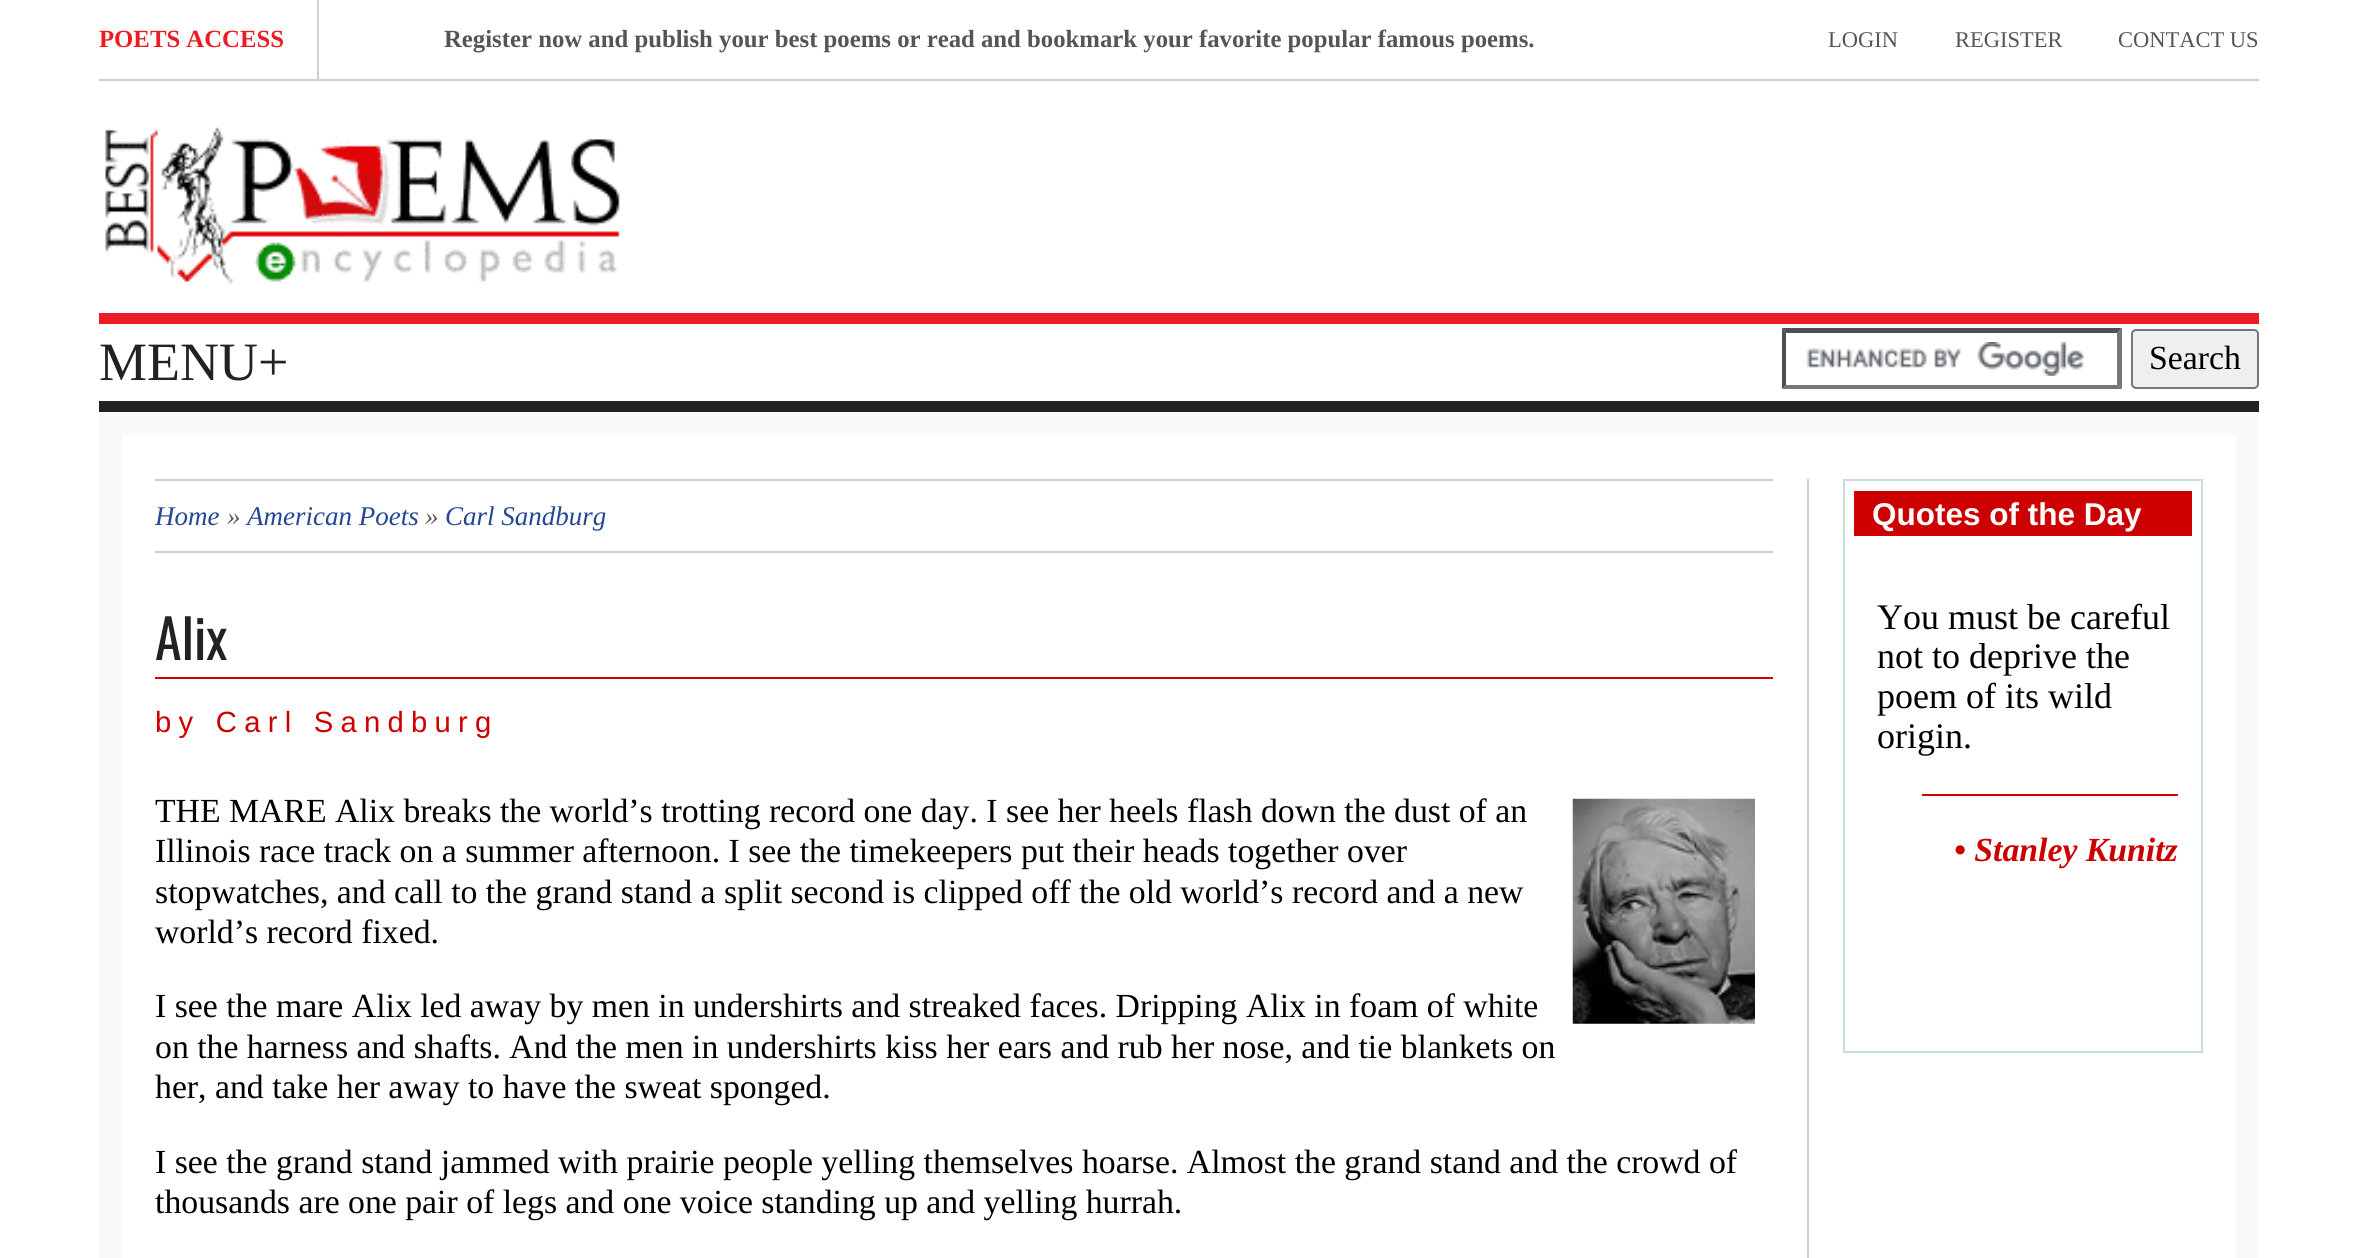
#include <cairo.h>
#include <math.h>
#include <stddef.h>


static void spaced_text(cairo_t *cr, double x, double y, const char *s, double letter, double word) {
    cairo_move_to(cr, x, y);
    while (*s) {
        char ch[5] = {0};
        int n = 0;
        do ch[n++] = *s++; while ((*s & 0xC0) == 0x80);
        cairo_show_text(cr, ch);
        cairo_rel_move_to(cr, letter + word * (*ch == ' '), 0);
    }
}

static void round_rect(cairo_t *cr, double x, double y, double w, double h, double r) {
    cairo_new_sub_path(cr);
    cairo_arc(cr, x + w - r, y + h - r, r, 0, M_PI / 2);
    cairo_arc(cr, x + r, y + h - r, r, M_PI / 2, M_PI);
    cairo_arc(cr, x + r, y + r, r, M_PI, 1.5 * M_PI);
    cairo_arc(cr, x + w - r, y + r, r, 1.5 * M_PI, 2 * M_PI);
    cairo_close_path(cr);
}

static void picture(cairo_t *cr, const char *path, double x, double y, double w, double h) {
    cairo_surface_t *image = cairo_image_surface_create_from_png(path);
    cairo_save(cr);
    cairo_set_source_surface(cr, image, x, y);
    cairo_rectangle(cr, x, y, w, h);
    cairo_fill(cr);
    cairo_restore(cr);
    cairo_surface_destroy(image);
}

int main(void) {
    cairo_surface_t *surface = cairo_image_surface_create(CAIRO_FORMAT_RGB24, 2356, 1258);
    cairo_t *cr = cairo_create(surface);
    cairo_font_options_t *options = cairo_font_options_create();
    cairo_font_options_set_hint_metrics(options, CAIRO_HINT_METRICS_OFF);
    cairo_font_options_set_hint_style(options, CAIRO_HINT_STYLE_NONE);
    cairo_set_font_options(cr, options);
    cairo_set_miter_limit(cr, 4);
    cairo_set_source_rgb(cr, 1, 1, 1);
    cairo_paint(cr);
    cairo_set_source_rgb(cr, 0.816, 0.816, 0.816);
    cairo_rectangle(cr, 99, 79, 2160, 2);
    cairo_fill(cr);
    cairo_rectangle(cr, 317, 0, 2, 79);
    cairo_fill(cr);
    cairo_select_font_face(cr, "Liberation Serif", CAIRO_FONT_SLANT_NORMAL, CAIRO_FONT_WEIGHT_BOLD);
    cairo_set_font_size(cr, 24.75);
    cairo_set_source_rgb(cr, 0.929, 0.11, 0.141);
    cairo_move_to(cr, 99, 47);
    cairo_show_text(cr, "POETS ACCESS");
    cairo_set_source_rgb(cr, 0.333, 0.333, 0.333);
    cairo_move_to(cr, 444, 47);
    cairo_show_text(cr, "Register now and publish your best poems or read and bookmark your favorite popular famous poems.");
    cairo_select_font_face(cr, "Liberation Serif", CAIRO_FONT_SLANT_NORMAL, CAIRO_FONT_WEIGHT_NORMAL);
    cairo_set_font_size(cr, 22.5);
    cairo_move_to(cr, 1828, 47);
    cairo_show_text(cr, "LOGIN");
    cairo_move_to(cr, 1955, 47);
    cairo_show_text(cr, "REGISTER");
    cairo_move_to(cr, 2118, 47);
    cairo_show_text(cr, "CONTACT US");
    picture(cr, "img1.png", 105, 127, 516, 157);
    cairo_set_source_rgb(cr, 0.929, 0.11, 0.141);
    cairo_rectangle(cr, 99, 313, 2160, 11);
    cairo_fill(cr);
    cairo_set_source_rgb(cr, 0.133, 0.133, 0.133);
    cairo_rectangle(cr, 99, 401, 2160, 11);
    cairo_fill(cr);
    cairo_set_font_size(cr, 54);
    cairo_move_to(cr, 99, 380);
    cairo_show_text(cr, "MENU+");
    picture(cr, "img2.png", 1806, 342, 278, 34);
    cairo_set_source_rgb(cr, 0.31, 0.31, 0.31);
    cairo_new_path(cr);
    cairo_move_to(cr, 1782, 328);
    cairo_line_to(cr, 2122, 328);
    cairo_line_to(cr, 2117, 333);
    cairo_line_to(cr, 1786, 333);
    cairo_close_path(cr);
    cairo_fill(cr);
    cairo_set_source_rgb(cr, 0.463, 0.463, 0.463);
    cairo_new_path(cr);
    cairo_move_to(cr, 2122, 328);
    cairo_line_to(cr, 2122, 389);
    cairo_line_to(cr, 2117, 385);
    cairo_line_to(cr, 2117, 333);
    cairo_close_path(cr);
    cairo_fill(cr);
    cairo_new_path(cr);
    cairo_move_to(cr, 2122, 389);
    cairo_line_to(cr, 1782, 389);
    cairo_line_to(cr, 1786, 385);
    cairo_line_to(cr, 2117, 385);
    cairo_close_path(cr);
    cairo_fill(cr);
    cairo_set_source_rgb(cr, 0.31, 0.31, 0.31);
    cairo_new_path(cr);
    cairo_move_to(cr, 1782, 389);
    cairo_line_to(cr, 1782, 328);
    cairo_line_to(cr, 1786, 333);
    cairo_line_to(cr, 1786, 385);
    cairo_close_path(cr);
    cairo_fill(cr);
    cairo_set_source_rgb(cr, 0.937, 0.937, 0.937);
    round_rect(cr, 2132, 330, 126, 58, 4);
    cairo_fill_preserve(cr);
    cairo_set_source_rgb(cr, 0.463, 0.463, 0.463);
    cairo_stroke(cr);
    cairo_set_font_size(cr, 33.75);
    cairo_set_source_rgb(cr, 0, 0, 0);
    cairo_move_to(cr, 2149, 369);
    cairo_show_text(cr, "Search");
    cairo_rectangle(cr, 110.5, 423.5, 2137, 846);
    cairo_set_source_rgb(cr, 0.976, 0.976, 0.976);
    cairo_set_line_width(cr, 23);
    cairo_stroke(cr);
    cairo_set_source_rgb(cr, 0.816, 0.816, 0.816);
    cairo_rectangle(cr, 1807, 479, 2, 779);
    cairo_fill(cr);
    cairo_rectangle(cr, 155, 479, 1618, 2);
    cairo_fill(cr);
    cairo_rectangle(cr, 155, 551, 1618, 2);
    cairo_fill(cr);
    cairo_select_font_face(cr, "Liberation Serif", CAIRO_FONT_SLANT_ITALIC, CAIRO_FONT_WEIGHT_NORMAL);
    cairo_set_font_size(cr, 27);
    cairo_set_source_rgb(cr, 0.145, 0.275, 0.58);
    cairo_move_to(cr, 155, 525);
    cairo_show_text(cr, "Home");
    cairo_set_source_rgb(cr, 0.333, 0.333, 0.333);
    cairo_move_to(cr, 227, 525);
    cairo_show_text(cr, "»");
    cairo_set_source_rgb(cr, 0.145, 0.275, 0.58);
    cairo_move_to(cr, 247, 525);
    cairo_show_text(cr, "American Poets");
    cairo_set_source_rgb(cr, 0.333, 0.333, 0.333);
    cairo_move_to(cr, 425, 525);
    cairo_show_text(cr, "»");
    cairo_set_source_rgb(cr, 0.145, 0.275, 0.58);
    cairo_move_to(cr, 445, 525);
    cairo_show_text(cr, "Carl Sandburg");
    cairo_set_source_rgb(cr, 0.8, 0, 0);
    cairo_rectangle(cr, 155, 677, 1618, 2);
    cairo_fill(cr);
    cairo_select_font_face(cr, "Oswald", CAIRO_FONT_SLANT_NORMAL, CAIRO_FONT_WEIGHT_NORMAL);
    cairo_set_font_size(cr, 54);
    cairo_set_source_rgb(cr, 0.133, 0.133, 0.133);
    cairo_move_to(cr, 155, 660);
    cairo_show_text(cr, "Alix");
    cairo_select_font_face(cr, "Liberation Sans", CAIRO_FONT_SLANT_NORMAL, CAIRO_FONT_WEIGHT_NORMAL);
    cairo_set_font_size(cr, 29.25);
    cairo_set_source_rgb(cr, 0.8, 0, 0);
    spaced_text(cr, 155, 732, "by Carl Sandburg", 7.25, 0);
    cairo_select_font_face(cr, "Liberation Serif", CAIRO_FONT_SLANT_NORMAL, CAIRO_FONT_WEIGHT_NORMAL);
    cairo_set_font_size(cr, 33.75);
    cairo_set_source_rgb(cr, 0, 0, 0);
    cairo_move_to(cr, 155, 822);
    cairo_show_text(cr, "THE MARE Alix breaks the world’s trotting record one day. I see her heels flash down the dust of an");
    cairo_move_to(cr, 155, 862);
    cairo_show_text(cr, "Illinois race track on a summer afternoon. I see the timekeepers put their heads together over");
    cairo_move_to(cr, 155, 903);
    cairo_show_text(cr, "stopwatches, and call to the grand stand a split second is clipped off the old world’s record and a new");
    cairo_move_to(cr, 155, 943);
    cairo_show_text(cr, "world’s record fixed.");
    picture(cr, "img3.png", 1572, 798, 183, 226);
    cairo_move_to(cr, 155, 1017);
    cairo_show_text(cr, "I see the mare Alix led away by men in undershirts and streaked faces. Dripping Alix in foam of white");
    cairo_move_to(cr, 155, 1058);
    cairo_show_text(cr, "on the harness and shafts. And the men in undershirts kiss her ears and rub her nose, and tie blankets on");
    cairo_move_to(cr, 155, 1098);
    cairo_show_text(cr, "her, and take her away to have the sweat sponged.");
    cairo_move_to(cr, 155, 1173);
    cairo_show_text(cr, "I see the grand stand jammed with prairie people yelling themselves hoarse. Almost the grand stand and the crowd of");
    cairo_move_to(cr, 155, 1213);
    cairo_show_text(cr, "thousands are one pair of legs and one voice standing up and yelling hurrah.");
    cairo_rectangle(cr, 1844, 480, 358, 572);
    cairo_set_source_rgb(cr, 0.788, 0.863, 0.886);
    cairo_set_line_width(cr, 2);
    cairo_stroke(cr);
    cairo_set_source_rgb(cr, 0.8, 0, 0);
    cairo_rectangle(cr, 1854, 491, 338, 45);
    cairo_fill(cr);
    cairo_select_font_face(cr, "Liberation Sans", CAIRO_FONT_SLANT_NORMAL, CAIRO_FONT_WEIGHT_BOLD);
    cairo_set_font_size(cr, 31.5);
    cairo_set_source_rgb(cr, 1, 1, 1);
    cairo_move_to(cr, 1872, 525);
    cairo_show_text(cr, "Quotes of the Day");
    cairo_select_font_face(cr, "Liberation Serif", CAIRO_FONT_SLANT_NORMAL, CAIRO_FONT_WEIGHT_NORMAL);
    cairo_set_font_size(cr, 36);
    cairo_set_source_rgb(cr, 0, 0, 0);
    cairo_move_to(cr, 1877, 629);
    cairo_show_text(cr, "You must be careful");
    cairo_move_to(cr, 1877, 668);
    cairo_show_text(cr, "not to deprive the");
    cairo_move_to(cr, 1877, 708);
    cairo_show_text(cr, "poem of its wild");
    cairo_move_to(cr, 1877, 748);
    cairo_show_text(cr, "origin.");
    cairo_set_source_rgb(cr, 0.8, 0, 0);
    cairo_rectangle(cr, 1922, 794, 256, 2);
    cairo_fill(cr);
    cairo_select_font_face(cr, "Liberation Serif", CAIRO_FONT_SLANT_ITALIC, CAIRO_FONT_WEIGHT_BOLD);
    cairo_set_font_size(cr, 33.75);
    cairo_move_to(cr, 1954, 861);
    cairo_show_text(cr, "• Stanley Kunitz");
    cairo_surface_write_to_png(surface, "page.png");
    cairo_font_options_destroy(options);
    cairo_destroy(cr);
    cairo_surface_destroy(surface);
    return 0;
}
